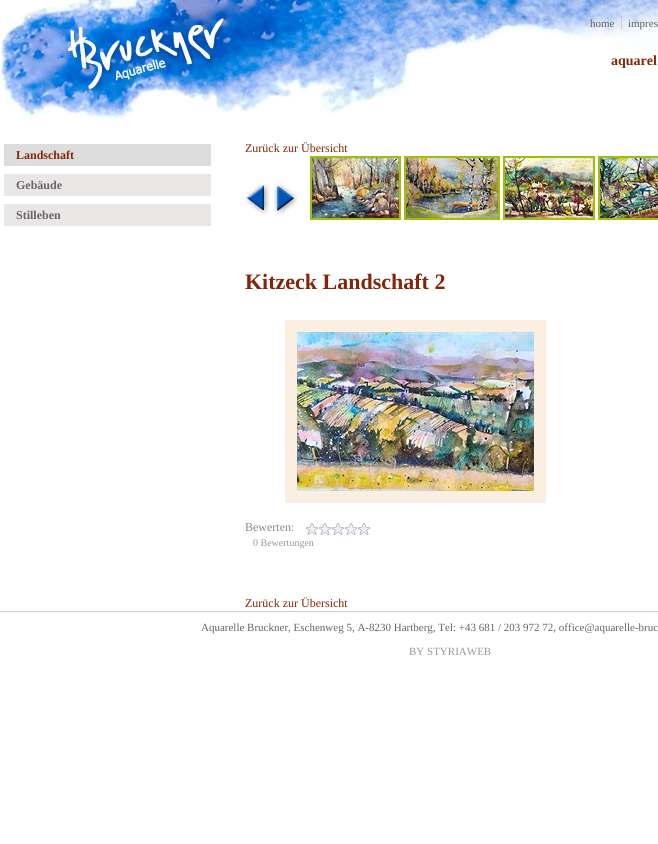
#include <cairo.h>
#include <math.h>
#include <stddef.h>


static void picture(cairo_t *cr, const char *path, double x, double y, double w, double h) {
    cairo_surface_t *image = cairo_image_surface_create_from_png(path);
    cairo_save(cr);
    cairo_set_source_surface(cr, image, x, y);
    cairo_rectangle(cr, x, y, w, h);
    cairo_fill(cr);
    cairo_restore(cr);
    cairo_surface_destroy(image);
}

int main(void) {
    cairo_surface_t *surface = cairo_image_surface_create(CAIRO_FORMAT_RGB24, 658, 844);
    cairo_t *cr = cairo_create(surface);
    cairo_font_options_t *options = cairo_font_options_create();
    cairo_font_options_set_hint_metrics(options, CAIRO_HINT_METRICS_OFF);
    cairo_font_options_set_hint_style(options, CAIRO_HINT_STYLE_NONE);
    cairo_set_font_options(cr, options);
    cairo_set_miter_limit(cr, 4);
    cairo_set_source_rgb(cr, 1, 1, 1);
    cairo_paint(cr);
    picture(cr, "img1.png", 0, 0, 658, 120);
    cairo_select_font_face(cr, "Liberation Serif", CAIRO_FONT_SLANT_NORMAL, CAIRO_FONT_WEIGHT_NORMAL);
    cairo_set_font_size(cr, 11);
    cairo_set_source_rgb(cr, 0.369, 0.365, 0.365);
    cairo_move_to(cr, 590, 27);
    cairo_show_text(cr, "home");
    cairo_set_source_rgb(cr, 0.8, 0.8, 0.8);
    cairo_rectangle(cr, 621, 17, 1, 12);
    cairo_fill(cr);
    cairo_set_source_rgb(cr, 0.369, 0.365, 0.365);
    cairo_move_to(cr, 628, 27);
    cairo_show_text(cr, "impres");
    cairo_select_font_face(cr, "Liberation Serif", CAIRO_FONT_SLANT_NORMAL, CAIRO_FONT_WEIGHT_BOLD);
    cairo_set_font_size(cr, 14);
    cairo_set_source_rgb(cr, 0.51, 0.149, 0.031);
    cairo_move_to(cr, 611, 65);
    cairo_show_text(cr, "aquarel");
    cairo_set_source_rgb(cr, 0.867, 0.867, 0.867);
    cairo_rectangle(cr, 4, 144, 207, 22);
    cairo_fill(cr);
    cairo_set_font_size(cr, 12);
    cairo_set_source_rgb(cr, 0.51, 0.149, 0.031);
    cairo_move_to(cr, 16, 159);
    cairo_show_text(cr, "Landschaft");
    cairo_set_source_rgb(cr, 0.914, 0.902, 0.902);
    cairo_rectangle(cr, 4, 174, 207, 22);
    cairo_fill(cr);
    cairo_set_source_rgb(cr, 0.4, 0.4, 0.4);
    cairo_move_to(cr, 16, 189);
    cairo_show_text(cr, "Gebäude");
    cairo_set_source_rgb(cr, 0.914, 0.902, 0.902);
    cairo_rectangle(cr, 4, 204, 207, 22);
    cairo_fill(cr);
    cairo_set_source_rgb(cr, 0.4, 0.4, 0.4);
    cairo_move_to(cr, 16, 219);
    cairo_show_text(cr, "Stilleben");
    cairo_select_font_face(cr, "Liberation Serif", CAIRO_FONT_SLANT_NORMAL, CAIRO_FONT_WEIGHT_NORMAL);
    cairo_set_source_rgb(cr, 0.51, 0.149, 0.031);
    cairo_move_to(cr, 245, 152);
    cairo_show_text(cr, "Zurück zur Übersicht");
    picture(cr, "img2.png", 245, 183, 25, 32);
    picture(cr, "img3.png", 274, 183, 24, 32);
    cairo_rectangle(cr, 311, 157, 89, 62);
    cairo_set_source_rgb(cr, 0.62, 0.753, 0.047);
    cairo_stroke(cr);
    cairo_rectangle(cr, 405, 157, 94, 62);
    cairo_stroke(cr);
    cairo_rectangle(cr, 504, 157, 90, 62);
    cairo_stroke(cr);
    cairo_rectangle(cr, 599, 157, 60, 62);
    cairo_stroke(cr);
    picture(cr, "img4.png", 312, 158, 87, 60);
    picture(cr, "img5.png", 406, 158, 92, 60);
    picture(cr, "img6.png", 505, 158, 88, 60);
    picture(cr, "img7.png", 600, 158, 58, 60);
    cairo_select_font_face(cr, "Liberation Serif", CAIRO_FONT_SLANT_NORMAL, CAIRO_FONT_WEIGHT_BOLD);
    cairo_set_font_size(cr, 22);
    cairo_set_source_rgb(cr, 0.51, 0.149, 0.031);
    cairo_move_to(cr, 245, 289);
    cairo_show_text(cr, "Kitzeck Landschaft 2");
    cairo_rectangle(cr, 291, 326, 249, 171);
    cairo_set_source_rgb(cr, 0.98, 0.937, 0.882);
    cairo_set_line_width(cr, 12);
    cairo_stroke(cr);
    picture(cr, "img8.png", 297, 332, 237, 159);
    cairo_select_font_face(cr, "Liberation Serif", CAIRO_FONT_SLANT_NORMAL, CAIRO_FONT_WEIGHT_NORMAL);
    cairo_set_font_size(cr, 12);
    cairo_set_source_rgb(cr, 0.533, 0.533, 0.533);
    cairo_move_to(cr, 245, 531);
    cairo_show_text(cr, "Bewerten:");
    picture(cr, "img9.png", 306, 523, 12, 12);
    picture(cr, "img9.png", 319, 523, 12, 12);
    picture(cr, "img9.png", 332, 523, 12, 12);
    picture(cr, "img9.png", 345, 523, 12, 12);
    picture(cr, "img9.png", 358, 523, 12, 12);
    cairo_set_font_size(cr, 10);
    cairo_set_source_rgb(cr, 0.6, 0.6, 0.6);
    cairo_move_to(cr, 253, 546);
    cairo_show_text(cr, "0 Bewertungen");
    cairo_set_font_size(cr, 12);
    cairo_set_source_rgb(cr, 0.51, 0.149, 0.031);
    cairo_move_to(cr, 245, 607);
    cairo_show_text(cr, "Zurück zur Übersicht");
    cairo_set_source_rgb(cr, 0.8, 0.8, 0.8);
    cairo_rectangle(cr, 0, 611, 658, 1);
    cairo_fill(cr);
    cairo_set_font_size(cr, 11);
    cairo_set_source_rgb(cr, 0.4, 0.4, 0.4);
    cairo_move_to(cr, 201, 631);
    cairo_show_text(cr, "Aquarelle Bruckner, Eschenweg 5, A-8230 Hartberg, Tel: +43 681 / 203 972 72, office@aquarelle-bruc");
    cairo_set_source_rgb(cr, 0.6, 0.6, 0.6);
    cairo_move_to(cr, 409, 655);
    cairo_show_text(cr, "BY STYRIAWEB");
    cairo_surface_write_to_png(surface, "page.png");
    cairo_font_options_destroy(options);
    cairo_destroy(cr);
    cairo_surface_destroy(surface);
    return 0;
}
